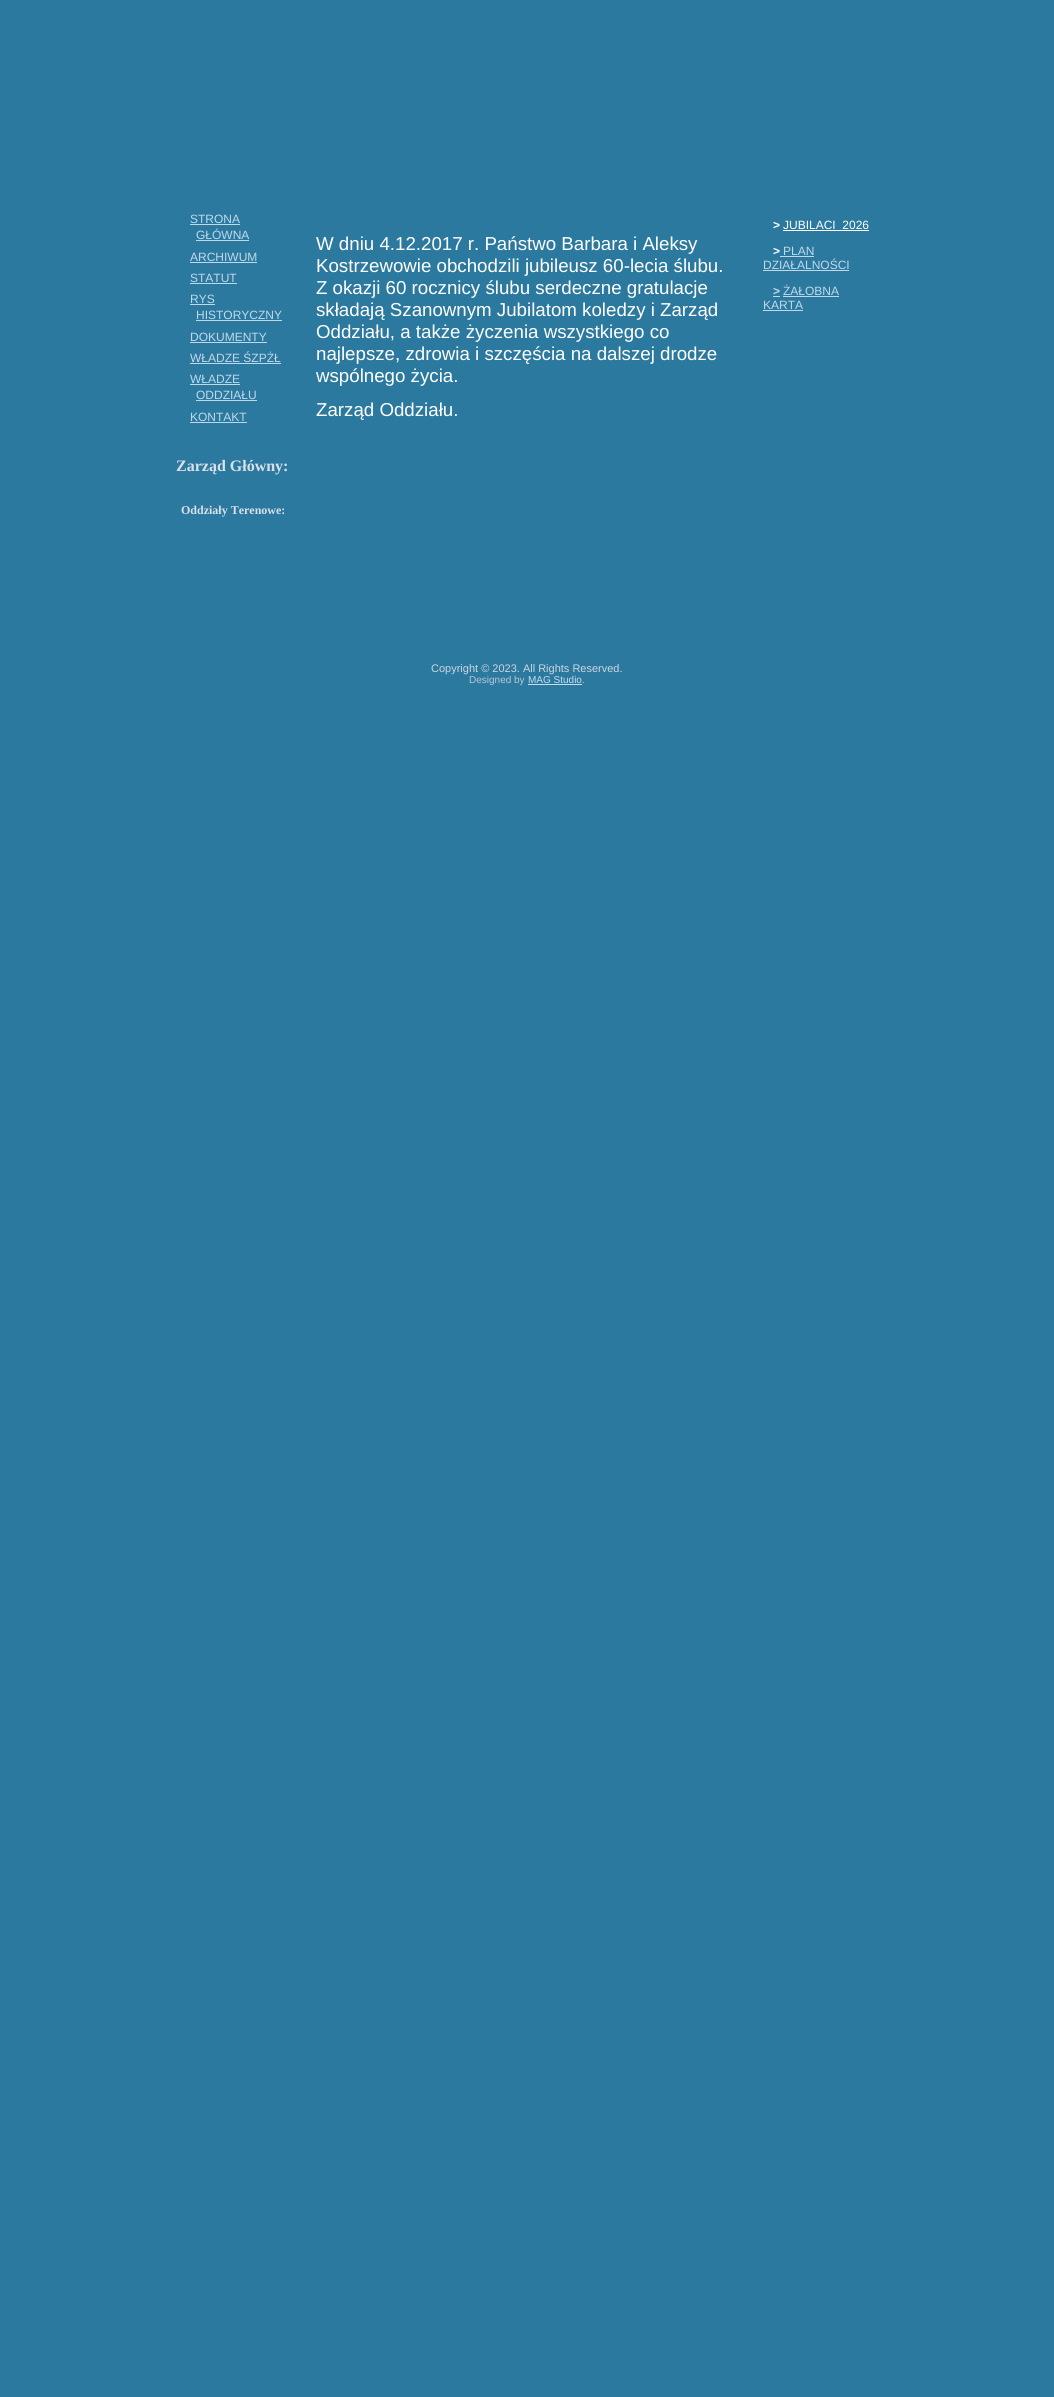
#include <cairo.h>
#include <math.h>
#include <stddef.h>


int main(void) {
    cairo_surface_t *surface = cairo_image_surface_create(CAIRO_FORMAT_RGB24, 1054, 2397);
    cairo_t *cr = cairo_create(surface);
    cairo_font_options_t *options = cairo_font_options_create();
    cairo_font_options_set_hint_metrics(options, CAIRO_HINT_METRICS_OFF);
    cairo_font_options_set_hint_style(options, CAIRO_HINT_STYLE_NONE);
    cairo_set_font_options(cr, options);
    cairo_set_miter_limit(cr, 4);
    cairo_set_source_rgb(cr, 0.173, 0.475, 0.627);
    cairo_paint(cr);
    cairo_select_font_face(cr, "Liberation Sans", CAIRO_FONT_SLANT_NORMAL, CAIRO_FONT_WEIGHT_NORMAL);
    cairo_set_font_size(cr, 12);
    cairo_set_source_rgb(cr, 0.753, 0.851, 0.91);
    cairo_move_to(cr, 190, 223);
    cairo_show_text(cr, "STRONA");
    cairo_rectangle(cr, 190, 224, 50, 1);
    cairo_fill(cr);
    cairo_move_to(cr, 196, 239);
    cairo_show_text(cr, "GŁÓWNA");
    cairo_rectangle(cr, 196, 240, 53, 1);
    cairo_fill(cr);
    cairo_move_to(cr, 190, 261);
    cairo_show_text(cr, "ARCHIWUM");
    cairo_rectangle(cr, 190, 262, 67, 1);
    cairo_fill(cr);
    cairo_move_to(cr, 190, 282);
    cairo_show_text(cr, "STATUT");
    cairo_rectangle(cr, 190, 283, 47, 1);
    cairo_fill(cr);
    cairo_move_to(cr, 190, 303);
    cairo_show_text(cr, "RYS");
    cairo_rectangle(cr, 190, 304, 25, 1);
    cairo_fill(cr);
    cairo_move_to(cr, 196, 319);
    cairo_show_text(cr, "HISTORYCZNY");
    cairo_rectangle(cr, 196, 320, 86, 1);
    cairo_fill(cr);
    cairo_move_to(cr, 190, 341);
    cairo_show_text(cr, "DOKUMENTY");
    cairo_rectangle(cr, 190, 342, 77, 1);
    cairo_fill(cr);
    cairo_move_to(cr, 190, 362);
    cairo_show_text(cr, "WŁADZE ŚZPŻŁ");
    cairo_rectangle(cr, 190, 363, 91, 1);
    cairo_fill(cr);
    cairo_move_to(cr, 190, 383);
    cairo_show_text(cr, "WŁADZE");
    cairo_rectangle(cr, 190, 384, 50, 1);
    cairo_fill(cr);
    cairo_move_to(cr, 196, 399);
    cairo_show_text(cr, "ODDZIAŁU");
    cairo_rectangle(cr, 196, 400, 61, 1);
    cairo_fill(cr);
    cairo_move_to(cr, 190, 421);
    cairo_show_text(cr, "KONTAKT");
    cairo_rectangle(cr, 190, 422, 57, 1);
    cairo_fill(cr);
    cairo_select_font_face(cr, "Liberation Serif", CAIRO_FONT_SLANT_NORMAL, CAIRO_FONT_WEIGHT_BOLD);
    cairo_set_font_size(cr, 16);
    cairo_set_source_rgb(cr, 0.851, 0.878, 0.91);
    cairo_move_to(cr, 176, 471);
    cairo_show_text(cr, "Zarząd Główny:");
    cairo_set_font_size(cr, 12);
    cairo_move_to(cr, 181, 514);
    cairo_show_text(cr, "Oddziały Terenowe:");
    cairo_select_font_face(cr, "Liberation Sans", CAIRO_FONT_SLANT_NORMAL, CAIRO_FONT_WEIGHT_NORMAL);
    cairo_set_font_size(cr, 18.7);
    cairo_set_source_rgb(cr, 1, 1, 1);
    cairo_move_to(cr, 316, 250);
    cairo_show_text(cr, "W dniu 4.12.2017 r. Państwo Barbara i Aleksy");
    cairo_move_to(cr, 316, 272);
    cairo_show_text(cr, "Kostrzewowie obchodzili jubileusz 60-lecia ślubu.");
    cairo_move_to(cr, 316, 294);
    cairo_show_text(cr, "Z okazji 60 rocznicy ślubu serdeczne gratulacje");
    cairo_move_to(cr, 316, 316);
    cairo_show_text(cr, "składają Szanownym Jubilatom koledzy i Zarząd");
    cairo_move_to(cr, 316, 338);
    cairo_show_text(cr, "Oddziału, a także życzenia wszystkiego co");
    cairo_move_to(cr, 316, 360);
    cairo_show_text(cr, "najlepsze, zdrowia i szczęścia na dalszej drodze");
    cairo_move_to(cr, 316, 382);
    cairo_show_text(cr, "wspólnego życia.");
    cairo_move_to(cr, 316, 416);
    cairo_show_text(cr, "Zarząd Oddziału.");
    cairo_select_font_face(cr, "Liberation Sans", CAIRO_FONT_SLANT_NORMAL, CAIRO_FONT_WEIGHT_BOLD);
    cairo_set_font_size(cr, 12);
    cairo_move_to(cr, 773, 229);
    cairo_show_text(cr, ">");
    cairo_select_font_face(cr, "Liberation Sans", CAIRO_FONT_SLANT_NORMAL, CAIRO_FONT_WEIGHT_NORMAL);
    cairo_move_to(cr, 783, 229);
    cairo_show_text(cr, "JUBILACI  2026");
    cairo_rectangle(cr, 783, 230, 86, 1);
    cairo_fill(cr);
    cairo_select_font_face(cr, "Liberation Sans", CAIRO_FONT_SLANT_NORMAL, CAIRO_FONT_WEIGHT_BOLD);
    cairo_move_to(cr, 773, 255);
    cairo_show_text(cr, ">");
    cairo_set_source_rgb(cr, 0.753, 0.851, 0.91);
    cairo_rectangle(cr, 780, 256, 34, 1);
    cairo_fill(cr);
    cairo_select_font_face(cr, "Liberation Sans", CAIRO_FONT_SLANT_NORMAL, CAIRO_FONT_WEIGHT_NORMAL);
    cairo_move_to(cr, 783, 255);
    cairo_show_text(cr, "PLAN");
    cairo_move_to(cr, 763, 269);
    cairo_show_text(cr, "DZIAŁALNOŚCI");
    cairo_rectangle(cr, 763, 270, 86, 1);
    cairo_fill(cr);
    cairo_select_font_face(cr, "Liberation Sans", CAIRO_FONT_SLANT_NORMAL, CAIRO_FONT_WEIGHT_BOLD);
    cairo_move_to(cr, 773, 295);
    cairo_show_text(cr, ">");
    cairo_rectangle(cr, 773, 296, 7, 1);
    cairo_fill(cr);
    cairo_select_font_face(cr, "Liberation Sans", CAIRO_FONT_SLANT_NORMAL, CAIRO_FONT_WEIGHT_NORMAL);
    cairo_move_to(cr, 783, 295);
    cairo_show_text(cr, "ŻAŁOBNA");
    cairo_rectangle(cr, 783, 296, 56, 1);
    cairo_fill(cr);
    cairo_move_to(cr, 763, 309);
    cairo_show_text(cr, "KARTA");
    cairo_rectangle(cr, 763, 310, 40, 1);
    cairo_fill(cr);
    cairo_set_font_size(cr, 11);
    cairo_set_source_rgb(cr, 0.8, 0.839, 0.878);
    cairo_move_to(cr, 431, 672);
    cairo_show_text(cr, "Copyright © 2023. All Rights Reserved.");
    cairo_set_font_size(cr, 10);
    cairo_set_source_rgb(cr, 0.725, 0.78, 0.835);
    cairo_move_to(cr, 469, 683);
    cairo_show_text(cr, "Designed by");
    cairo_set_source_rgb(cr, 0.78, 0.867, 0.918);
    cairo_move_to(cr, 528, 683);
    cairo_show_text(cr, "MAG Studio");
    cairo_set_source_rgb(cr, 0.725, 0.78, 0.835);
    cairo_move_to(cr, 582, 683);
    cairo_show_text(cr, ".");
    cairo_set_source_rgb(cr, 0.78, 0.867, 0.918);
    cairo_rectangle(cr, 528, 684, 54, 1);
    cairo_fill(cr);
    cairo_surface_write_to_png(surface, "page.png");
    cairo_font_options_destroy(options);
    cairo_destroy(cr);
    cairo_surface_destroy(surface);
    return 0;
}
